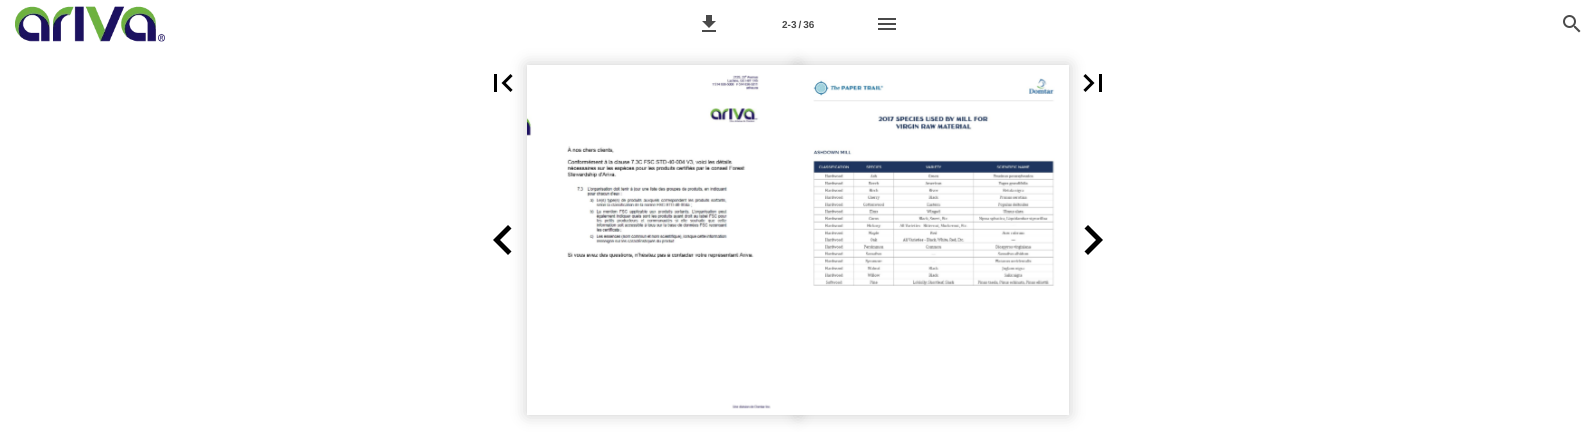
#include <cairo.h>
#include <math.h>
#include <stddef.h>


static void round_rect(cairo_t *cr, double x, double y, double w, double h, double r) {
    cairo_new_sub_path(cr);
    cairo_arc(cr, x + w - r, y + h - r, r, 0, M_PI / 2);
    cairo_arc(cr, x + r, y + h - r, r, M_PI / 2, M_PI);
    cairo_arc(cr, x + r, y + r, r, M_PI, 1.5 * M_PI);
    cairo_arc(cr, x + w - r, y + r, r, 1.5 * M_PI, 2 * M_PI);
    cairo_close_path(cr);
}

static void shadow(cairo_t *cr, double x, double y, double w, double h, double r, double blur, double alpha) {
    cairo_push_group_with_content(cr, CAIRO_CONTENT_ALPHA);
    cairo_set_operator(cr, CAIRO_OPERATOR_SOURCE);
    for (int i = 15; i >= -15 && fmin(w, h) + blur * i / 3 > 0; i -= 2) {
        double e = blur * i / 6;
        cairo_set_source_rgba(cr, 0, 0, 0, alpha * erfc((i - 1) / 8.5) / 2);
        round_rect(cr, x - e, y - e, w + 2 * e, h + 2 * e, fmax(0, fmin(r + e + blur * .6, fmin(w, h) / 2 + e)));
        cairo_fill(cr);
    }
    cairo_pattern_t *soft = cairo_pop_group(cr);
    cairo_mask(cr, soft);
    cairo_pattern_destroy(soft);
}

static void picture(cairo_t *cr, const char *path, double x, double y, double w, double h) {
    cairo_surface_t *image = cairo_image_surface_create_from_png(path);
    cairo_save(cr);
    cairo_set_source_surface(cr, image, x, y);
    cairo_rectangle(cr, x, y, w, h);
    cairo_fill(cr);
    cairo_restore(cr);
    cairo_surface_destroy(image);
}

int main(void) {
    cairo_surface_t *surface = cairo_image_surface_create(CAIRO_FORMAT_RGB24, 1596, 432);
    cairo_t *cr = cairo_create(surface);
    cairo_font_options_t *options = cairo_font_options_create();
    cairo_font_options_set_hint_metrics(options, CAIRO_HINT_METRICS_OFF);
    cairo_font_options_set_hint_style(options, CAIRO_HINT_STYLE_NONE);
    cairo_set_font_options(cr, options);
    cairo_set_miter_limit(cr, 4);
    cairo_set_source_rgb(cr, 1, 1, 1);
    cairo_paint(cr);
    picture(cr, "img1.png", 15, 6, 150, 36);
    picture(cr, "img2.png", 702, 15, 14, 17);
    cairo_select_font_face(cr, "Liberation Sans", CAIRO_FONT_SLANT_NORMAL, CAIRO_FONT_WEIGHT_BOLD);
    cairo_set_font_size(cr, 10);
    cairo_set_source_rgb(cr, 0.29, 0.29, 0.29);
    cairo_move_to(cr, 782, 28);
    cairo_show_text(cr, "2-3 / 36");
    picture(cr, "img3.png", 878, 18, 18, 12);
    picture(cr, "img4.png", 1563, 15, 18, 18);
    cairo_set_source_rgb(cr, 0, 0, 0);
    shadow(cr, 527, 65, 271, 350, 0, 8, 0.2);
    shadow(cr, 798, 65, 271, 350, 0, 8, 0.2);
    cairo_set_source_rgb(cr, 1, 1, 1);
    cairo_rectangle(cr, 527, 65, 542, 350);
    cairo_fill(cr);
    picture(cr, "img5.png", 527, 75, 244, 334);
    picture(cr, "img6.png", 813, 78, 242, 208);
    picture(cr, "img7.png", 494, 74, 19, 18);
    cairo_set_source_rgb(cr, 0, 0, 0);
    cairo_new_path(cr);
    cairo_move_to(cr, 511.5, 228.5);
    cairo_line_to(cr, 508, 225);
    cairo_line_to(cr, 493, 240);
    cairo_line_to(cr, 508, 255);
    cairo_line_to(cr, 511.5, 251.5);
    cairo_line_to(cr, 500, 240);
    cairo_close_path(cr);
    cairo_fill(cr);
    picture(cr, "img8.png", 1083, 74, 19, 18);
    cairo_new_path(cr);
    cairo_move_to(cr, 1088, 225);
    cairo_line_to(cr, 1084.5, 228.5);
    cairo_line_to(cr, 1096, 240);
    cairo_line_to(cr, 1084.5, 251.5);
    cairo_line_to(cr, 1088, 255);
    cairo_line_to(cr, 1103, 240);
    cairo_close_path(cr);
    cairo_fill(cr);
    cairo_surface_write_to_png(surface, "page.png");
    cairo_font_options_destroy(options);
    cairo_destroy(cr);
    cairo_surface_destroy(surface);
    return 0;
}
